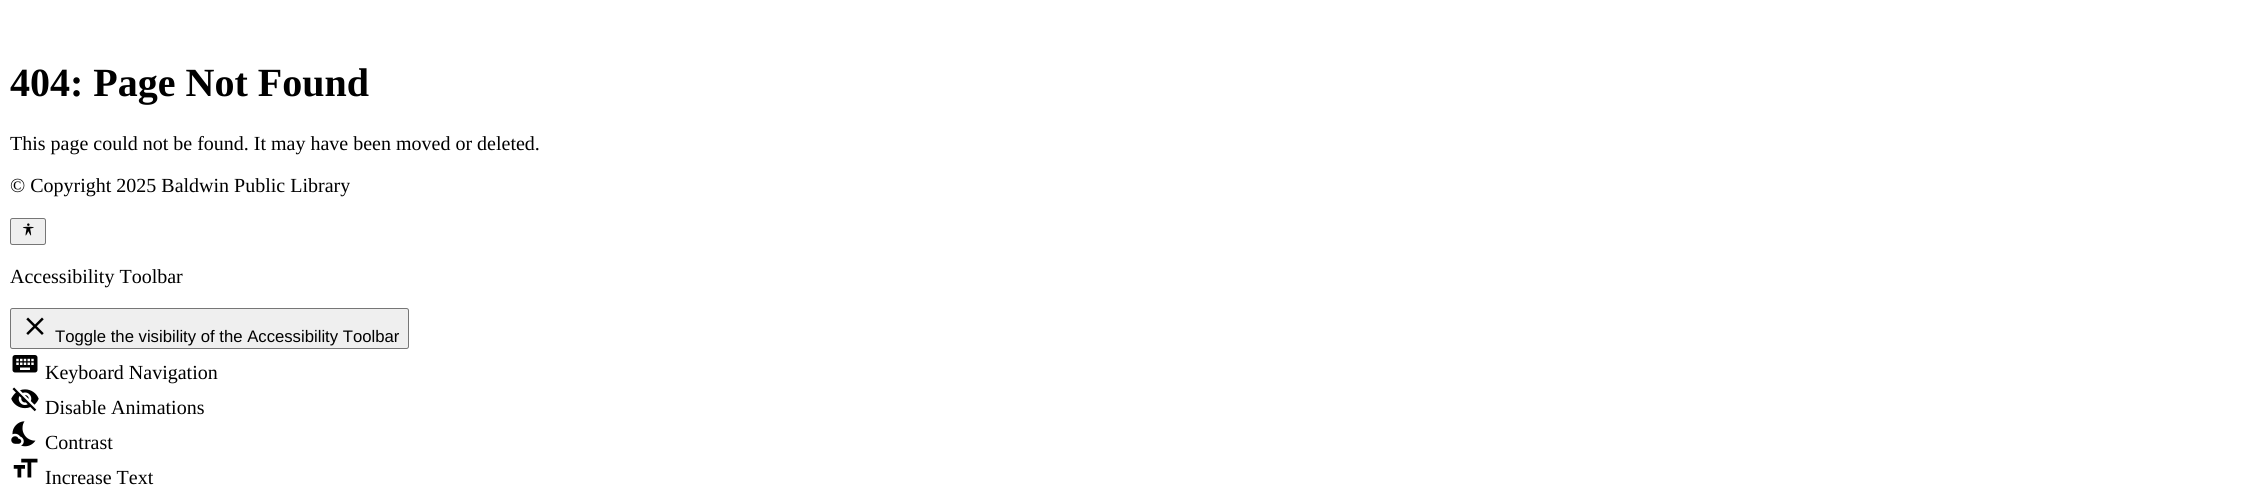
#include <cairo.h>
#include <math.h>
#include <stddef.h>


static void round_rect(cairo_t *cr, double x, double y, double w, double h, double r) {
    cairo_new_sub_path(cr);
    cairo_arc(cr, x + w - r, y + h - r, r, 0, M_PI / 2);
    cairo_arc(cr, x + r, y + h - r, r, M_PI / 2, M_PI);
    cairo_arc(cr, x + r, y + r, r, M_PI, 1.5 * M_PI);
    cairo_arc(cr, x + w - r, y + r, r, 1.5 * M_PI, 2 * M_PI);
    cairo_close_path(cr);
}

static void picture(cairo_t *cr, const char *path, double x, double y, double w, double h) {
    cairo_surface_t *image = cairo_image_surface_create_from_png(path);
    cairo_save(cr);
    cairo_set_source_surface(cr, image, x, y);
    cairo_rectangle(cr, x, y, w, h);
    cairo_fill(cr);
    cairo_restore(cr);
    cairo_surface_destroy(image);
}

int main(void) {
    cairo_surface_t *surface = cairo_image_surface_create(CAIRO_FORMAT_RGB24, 2241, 490);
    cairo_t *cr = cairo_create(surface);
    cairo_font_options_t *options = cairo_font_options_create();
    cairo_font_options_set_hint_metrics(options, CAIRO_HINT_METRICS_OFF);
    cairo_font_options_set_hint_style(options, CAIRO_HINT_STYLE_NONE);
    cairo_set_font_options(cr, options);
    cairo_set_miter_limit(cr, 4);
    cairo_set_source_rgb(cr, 1, 1, 1);
    cairo_paint(cr);
    cairo_select_font_face(cr, "Liberation Serif", CAIRO_FONT_SLANT_NORMAL, CAIRO_FONT_WEIGHT_BOLD);
    cairo_set_font_size(cr, 40);
    cairo_set_source_rgb(cr, 0, 0, 0);
    cairo_move_to(cr, 10, 96);
    cairo_show_text(cr, "404: Page Not Found");
    cairo_select_font_face(cr, "Liberation Serif", CAIRO_FONT_SLANT_NORMAL, CAIRO_FONT_WEIGHT_NORMAL);
    cairo_set_font_size(cr, 20);
    cairo_move_to(cr, 10, 150);
    cairo_show_text(cr, "This page could not be found. It may have been moved or deleted.");
    cairo_move_to(cr, 10, 192);
    cairo_show_text(cr, "© Copyright 2025 Baldwin Public Library");
    cairo_set_source_rgb(cr, 0.937, 0.937, 0.937);
    round_rect(cr, 10.5, 218.5, 35, 26, 2);
    cairo_fill_preserve(cr);
    cairo_set_source_rgb(cr, 0.463, 0.463, 0.463);
    cairo_set_line_width(cr, 1);
    cairo_stroke(cr);
    picture(cr, "img1.png", 22, 223, 12, 13);
    cairo_set_source_rgb(cr, 0, 0, 0);
    cairo_move_to(cr, 10, 283);
    cairo_show_text(cr, "Accessibility Toolbar");
    cairo_set_source_rgb(cr, 0.937, 0.937, 0.937);
    round_rect(cr, 10.5, 308.5, 398, 40, 2);
    cairo_fill_preserve(cr);
    cairo_set_source_rgb(cr, 0.463, 0.463, 0.463);
    cairo_stroke(cr);
    picture(cr, "img2.png", 26, 317, 18, 18);
    cairo_select_font_face(cr, "Liberation Sans", CAIRO_FONT_SLANT_NORMAL, CAIRO_FONT_WEIGHT_NORMAL);
    cairo_set_font_size(cr, 16.7);
    cairo_set_source_rgb(cr, 0, 0, 0);
    cairo_move_to(cr, 55, 342);
    cairo_show_text(cr, "Toggle the visibility of the Accessibility Toolbar");
    picture(cr, "img3.png", 12, 355, 26, 18);
    cairo_select_font_face(cr, "Liberation Serif", CAIRO_FONT_SLANT_NORMAL, CAIRO_FONT_WEIGHT_NORMAL);
    cairo_set_font_size(cr, 20);
    cairo_move_to(cr, 45, 379);
    cairo_show_text(cr, "Keyboard Navigation");
    picture(cr, "img4.png", 11, 387, 28, 25);
    cairo_move_to(cr, 45, 414);
    cairo_show_text(cr, "Disable Animations");
    picture(cr, "img5.png", 11, 421, 25, 26);
    cairo_move_to(cr, 45, 449);
    cairo_show_text(cr, "Contrast");
    picture(cr, "img6.png", 13, 458, 25, 20);
    cairo_move_to(cr, 45, 484);
    cairo_show_text(cr, "Increase Text");
    cairo_surface_write_to_png(surface, "page.png");
    cairo_font_options_destroy(options);
    cairo_destroy(cr);
    cairo_surface_destroy(surface);
    return 0;
}
